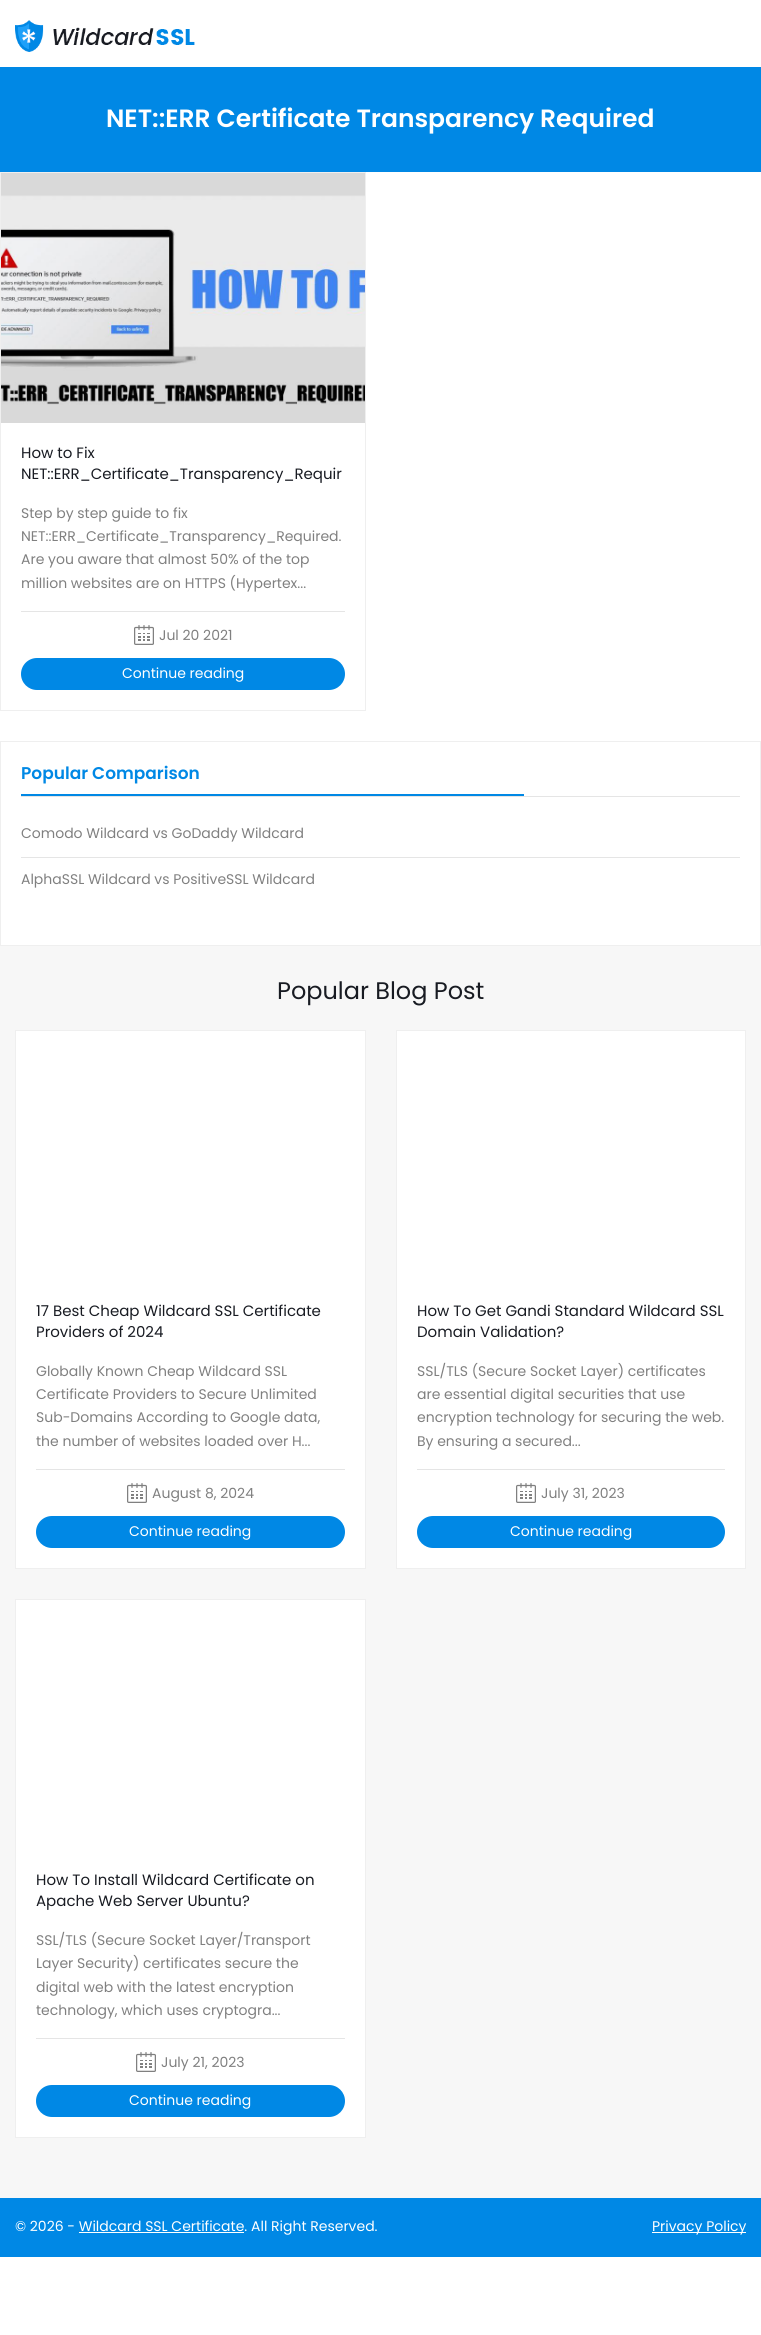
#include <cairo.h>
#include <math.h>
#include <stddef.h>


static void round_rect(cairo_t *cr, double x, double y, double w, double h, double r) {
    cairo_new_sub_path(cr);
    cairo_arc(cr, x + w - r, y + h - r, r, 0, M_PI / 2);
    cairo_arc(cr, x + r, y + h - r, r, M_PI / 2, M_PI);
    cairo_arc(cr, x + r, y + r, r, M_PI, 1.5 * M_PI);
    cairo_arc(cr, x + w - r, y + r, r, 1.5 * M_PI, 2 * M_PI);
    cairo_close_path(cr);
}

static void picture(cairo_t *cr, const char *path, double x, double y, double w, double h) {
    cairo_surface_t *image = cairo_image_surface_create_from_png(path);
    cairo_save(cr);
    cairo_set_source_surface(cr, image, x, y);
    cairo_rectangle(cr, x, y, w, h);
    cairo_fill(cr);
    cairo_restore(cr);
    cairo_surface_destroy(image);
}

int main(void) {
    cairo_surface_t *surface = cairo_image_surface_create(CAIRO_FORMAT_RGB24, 761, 2335);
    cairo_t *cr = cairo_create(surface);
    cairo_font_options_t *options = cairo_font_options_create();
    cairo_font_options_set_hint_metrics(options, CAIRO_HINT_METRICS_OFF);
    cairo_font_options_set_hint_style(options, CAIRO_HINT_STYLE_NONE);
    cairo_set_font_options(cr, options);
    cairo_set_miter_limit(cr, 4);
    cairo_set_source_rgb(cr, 1, 1, 1);
    cairo_paint(cr);
    picture(cr, "img1.png", 15, 20, 180, 32);
    cairo_set_source_rgb(cr, 0, 0.533, 0.898);
    cairo_rectangle(cr, 0, 67, 761, 105);
    cairo_fill(cr);
    cairo_select_font_face(cr, "Poppins SemiBold", CAIRO_FONT_SLANT_NORMAL, CAIRO_FONT_WEIGHT_NORMAL);
    cairo_set_font_size(cr, 25);
    cairo_set_source_rgb(cr, 1, 1, 1);
    cairo_move_to(cr, 106, 127);
    cairo_show_text(cr, "NET::ERR Certificate Transparency Required");
    cairo_rectangle(cr, 0.5, 172.5, 365, 538);
    cairo_set_source_rgb(cr, 0.937, 0.937, 0.937);
    cairo_set_line_width(cr, 1);
    cairo_stroke(cr);
    picture(cr, "img2.png", 1, 173, 364, 250);
    cairo_select_font_face(cr, "Poppins", CAIRO_FONT_SLANT_NORMAL, CAIRO_FONT_WEIGHT_NORMAL);
    cairo_set_font_size(cr, 15);
    cairo_set_source_rgb(cr, 0.094, 0.106, 0.133);
    cairo_move_to(cr, 21, 458);
    cairo_show_text(cr, "How to Fix");
    cairo_move_to(cr, 21, 479);
    cairo_show_text(cr, "NET::ERR_Certificate_Transparency_Requir");
    cairo_set_font_size(cr, 14);
    cairo_set_source_rgb(cr, 0.502, 0.502, 0.502);
    cairo_move_to(cr, 21, 518);
    cairo_show_text(cr, "Step by step guide to fix");
    cairo_move_to(cr, 21, 541);
    cairo_show_text(cr, "NET::ERR_Certificate_Transparency_Required.");
    cairo_move_to(cr, 21, 564);
    cairo_show_text(cr, "Are you aware that almost 50% of the top");
    cairo_move_to(cr, 21, 588);
    cairo_show_text(cr, "million websites are on HTTPS (Hypertex...");
    cairo_set_source_rgb(cr, 0.898, 0.898, 0.898);
    cairo_rectangle(cr, 21, 611, 324, 1);
    cairo_fill(cr);
    picture(cr, "img3.png", 134, 625, 20, 20);
    cairo_set_source_rgb(cr, 0.502, 0.502, 0.502);
    cairo_move_to(cr, 159, 640);
    cairo_show_text(cr, "Jul 20 2021");
    cairo_set_source_rgb(cr, 0, 0.533, 0.898);
    round_rect(cr, 21, 658, 324, 32, 16);
    cairo_fill(cr);
    cairo_set_source_rgb(cr, 1, 1, 1);
    cairo_move_to(cr, 122, 678);
    cairo_show_text(cr, "Continue reading");
    cairo_rectangle(cr, 0.5, 741.5, 760, 204);
    cairo_set_source_rgb(cr, 0.937, 0.937, 0.937);
    cairo_stroke(cr);
    cairo_set_source_rgb(cr, 0.898, 0.898, 0.898);
    cairo_rectangle(cr, 21, 796, 719, 1);
    cairo_fill(cr);
    cairo_select_font_face(cr, "Poppins SemiBold", CAIRO_FONT_SLANT_NORMAL, CAIRO_FONT_WEIGHT_NORMAL);
    cairo_set_font_size(cr, 17);
    cairo_set_source_rgb(cr, 0, 0.533, 0.898);
    cairo_move_to(cr, 21, 779);
    cairo_show_text(cr, "Popular Comparison");
    cairo_rectangle(cr, 21, 794, 503, 2);
    cairo_fill(cr);
    cairo_set_source_rgb(cr, 0.898, 0.898, 0.898);
    cairo_rectangle(cr, 21, 857, 719, 1);
    cairo_fill(cr);
    cairo_select_font_face(cr, "Poppins", CAIRO_FONT_SLANT_NORMAL, CAIRO_FONT_WEIGHT_NORMAL);
    cairo_set_font_size(cr, 14);
    cairo_set_source_rgb(cr, 0.502, 0.502, 0.502);
    cairo_move_to(cr, 21, 838);
    cairo_show_text(cr, "Comodo Wildcard vs GoDaddy Wildcard");
    cairo_move_to(cr, 21, 884);
    cairo_show_text(cr, "AlphaSSL Wildcard vs PositiveSSL Wildcard");
    cairo_set_source_rgb(cr, 0.965, 0.965, 0.965);
    cairo_rectangle(cr, 0, 946, 761, 1252);
    cairo_fill(cr);
    cairo_set_font_size(cr, 24);
    cairo_set_source_rgb(cr, 0.094, 0.106, 0.133);
    cairo_move_to(cr, 277, 999);
    cairo_show_text(cr, "Popular Blog Post");
    cairo_set_source_rgb(cr, 1, 1, 1);
    cairo_rectangle(cr, 15.5, 1030.5, 350, 538);
    cairo_fill_preserve(cr);
    cairo_set_source_rgb(cr, 0.937, 0.937, 0.937);
    cairo_stroke(cr);
    cairo_set_font_size(cr, 15);
    cairo_set_source_rgb(cr, 0.094, 0.106, 0.133);
    cairo_move_to(cr, 36, 1316);
    cairo_show_text(cr, "17 Best Cheap Wildcard SSL Certificate");
    cairo_move_to(cr, 36, 1337);
    cairo_show_text(cr, "Providers of 2024");
    cairo_set_font_size(cr, 14);
    cairo_set_source_rgb(cr, 0.502, 0.502, 0.502);
    cairo_move_to(cr, 36, 1376);
    cairo_show_text(cr, "Globally Known Cheap Wildcard SSL");
    cairo_move_to(cr, 36, 1399);
    cairo_show_text(cr, "Certificate Providers to Secure Unlimited");
    cairo_move_to(cr, 36, 1422);
    cairo_show_text(cr, "Sub-Domains According to Google data,");
    cairo_move_to(cr, 36, 1446);
    cairo_show_text(cr, "the number of websites loaded over H...");
    cairo_set_source_rgb(cr, 0.898, 0.898, 0.898);
    cairo_rectangle(cr, 36, 1469, 309, 1);
    cairo_fill(cr);
    picture(cr, "img3.png", 127, 1483, 20, 20);
    cairo_set_source_rgb(cr, 0.502, 0.502, 0.502);
    cairo_move_to(cr, 152, 1498);
    cairo_show_text(cr, "August 8, 2024");
    cairo_set_source_rgb(cr, 0, 0.533, 0.898);
    round_rect(cr, 36, 1516, 309, 32, 16);
    cairo_fill(cr);
    cairo_set_source_rgb(cr, 1, 1, 1);
    cairo_move_to(cr, 129, 1536);
    cairo_show_text(cr, "Continue reading");
    cairo_rectangle(cr, 396.5, 1030.5, 349, 538);
    cairo_fill_preserve(cr);
    cairo_set_source_rgb(cr, 0.937, 0.937, 0.937);
    cairo_stroke(cr);
    cairo_set_font_size(cr, 15);
    cairo_set_source_rgb(cr, 0.094, 0.106, 0.133);
    cairo_move_to(cr, 417, 1316);
    cairo_show_text(cr, "How To Get Gandi Standard Wildcard SSL");
    cairo_move_to(cr, 417, 1337);
    cairo_show_text(cr, "Domain Validation?");
    cairo_set_font_size(cr, 14);
    cairo_set_source_rgb(cr, 0.502, 0.502, 0.502);
    cairo_move_to(cr, 417, 1376);
    cairo_show_text(cr, "SSL/TLS (Secure Socket Layer) certificates");
    cairo_move_to(cr, 417, 1399);
    cairo_show_text(cr, "are essential digital securities that use");
    cairo_move_to(cr, 417, 1422);
    cairo_show_text(cr, "encryption technology for securing the web.");
    cairo_move_to(cr, 417, 1446);
    cairo_show_text(cr, "By ensuring a secured...");
    cairo_set_source_rgb(cr, 0.898, 0.898, 0.898);
    cairo_rectangle(cr, 417, 1469, 308, 1);
    cairo_fill(cr);
    picture(cr, "img3.png", 516, 1483, 20, 20);
    cairo_set_source_rgb(cr, 0.502, 0.502, 0.502);
    cairo_move_to(cr, 541, 1498);
    cairo_show_text(cr, "July 31, 2023");
    cairo_set_source_rgb(cr, 0, 0.533, 0.898);
    round_rect(cr, 417, 1516, 308, 32, 16);
    cairo_fill(cr);
    cairo_set_source_rgb(cr, 1, 1, 1);
    cairo_move_to(cr, 510, 1536);
    cairo_show_text(cr, "Continue reading");
    cairo_rectangle(cr, 15.5, 1599.5, 350, 538);
    cairo_fill_preserve(cr);
    cairo_set_source_rgb(cr, 0.937, 0.937, 0.937);
    cairo_stroke(cr);
    cairo_set_font_size(cr, 15);
    cairo_set_source_rgb(cr, 0.094, 0.106, 0.133);
    cairo_move_to(cr, 36, 1885);
    cairo_show_text(cr, "How To Install Wildcard Certificate on");
    cairo_move_to(cr, 36, 1906);
    cairo_show_text(cr, "Apache Web Server Ubuntu?");
    cairo_set_font_size(cr, 14);
    cairo_set_source_rgb(cr, 0.502, 0.502, 0.502);
    cairo_move_to(cr, 36, 1945);
    cairo_show_text(cr, "SSL/TLS (Secure Socket Layer/Transport");
    cairo_move_to(cr, 36, 1968);
    cairo_show_text(cr, "Layer Security) certificates secure the");
    cairo_move_to(cr, 36, 1992);
    cairo_show_text(cr, "digital web with the latest encryption");
    cairo_move_to(cr, 36, 2015);
    cairo_show_text(cr, "technology, which uses cryptogra...");
    cairo_set_source_rgb(cr, 0.898, 0.898, 0.898);
    cairo_rectangle(cr, 36, 2038, 309, 1);
    cairo_fill(cr);
    picture(cr, "img3.png", 136, 2052, 20, 20);
    cairo_set_source_rgb(cr, 0.502, 0.502, 0.502);
    cairo_move_to(cr, 161, 2067);
    cairo_show_text(cr, "July 21, 2023");
    cairo_set_source_rgb(cr, 0, 0.533, 0.898);
    round_rect(cr, 36, 2085, 309, 32, 16);
    cairo_fill(cr);
    cairo_set_source_rgb(cr, 1, 1, 1);
    cairo_move_to(cr, 129, 2105);
    cairo_show_text(cr, "Continue reading");
    cairo_set_source_rgb(cr, 0, 0.533, 0.898);
    cairo_rectangle(cr, 0, 2198, 761, 59);
    cairo_fill(cr);
    cairo_set_source_rgb(cr, 1, 1, 1);
    cairo_move_to(cr, 15, 2231);
    cairo_show_text(cr, "© 2026 - Wildcard SSL Certificate. All Right Reserved.");
    cairo_rectangle(cr, 79, 2232, 165, 1);
    cairo_fill(cr);
    cairo_rectangle(cr, 652, 2232, 94, 1);
    cairo_fill(cr);
    cairo_move_to(cr, 652, 2231);
    cairo_show_text(cr, "Privacy Policy");
    cairo_surface_write_to_png(surface, "page.png");
    cairo_font_options_destroy(options);
    cairo_destroy(cr);
    cairo_surface_destroy(surface);
    return 0;
}
